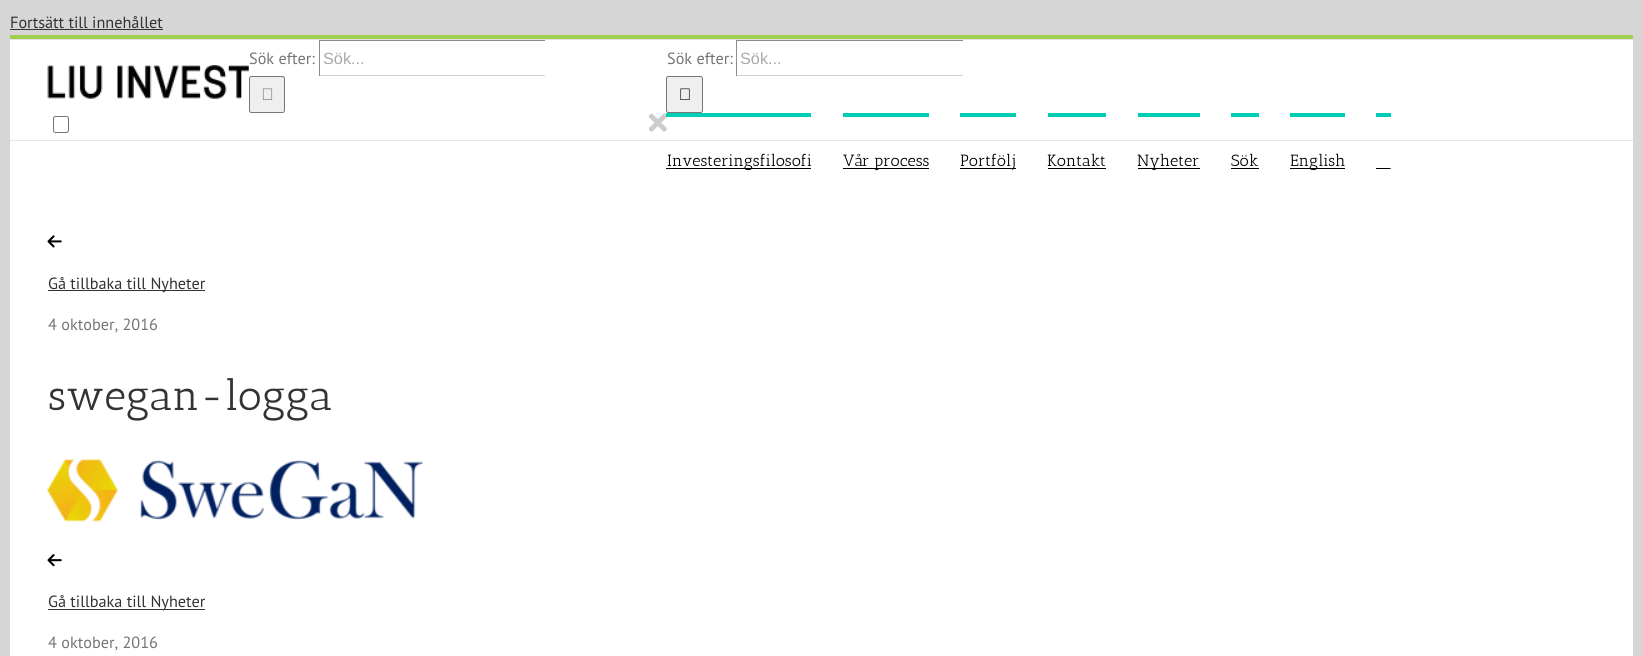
#include <cairo.h>
#include <math.h>
#include <stddef.h>


static void round_rect(cairo_t *cr, double x, double y, double w, double h, double r) {
    cairo_new_sub_path(cr);
    cairo_arc(cr, x + w - r, y + h - r, r, 0, M_PI / 2);
    cairo_arc(cr, x + r, y + h - r, r, M_PI / 2, M_PI);
    cairo_arc(cr, x + r, y + r, r, M_PI, 1.5 * M_PI);
    cairo_arc(cr, x + w - r, y + r, r, 1.5 * M_PI, 2 * M_PI);
    cairo_close_path(cr);
}

static void picture(cairo_t *cr, const char *path, double x, double y, double w, double h) {
    cairo_surface_t *image = cairo_image_surface_create_from_png(path);
    cairo_save(cr);
    cairo_set_source_surface(cr, image, x, y);
    cairo_rectangle(cr, x, y, w, h);
    cairo_fill(cr);
    cairo_restore(cr);
    cairo_surface_destroy(image);
}

int main(void) {
    cairo_surface_t *surface = cairo_image_surface_create(CAIRO_FORMAT_RGB24, 1642, 656);
    cairo_t *cr = cairo_create(surface);
    cairo_font_options_t *options = cairo_font_options_create();
    cairo_font_options_set_hint_metrics(options, CAIRO_HINT_METRICS_OFF);
    cairo_font_options_set_hint_style(options, CAIRO_HINT_STYLE_NONE);
    cairo_set_font_options(cr, options);
    cairo_set_miter_limit(cr, 4);
    cairo_set_source_rgb(cr, 0.843, 0.839, 0.839);
    cairo_paint(cr);
    cairo_select_font_face(cr, "PT Sans", CAIRO_FONT_SLANT_NORMAL, CAIRO_FONT_WEIGHT_NORMAL);
    cairo_set_font_size(cr, 16.25);
    cairo_set_source_rgb(cr, 0.2, 0.2, 0.2);
    cairo_move_to(cr, 10, 28);
    cairo_show_text(cr, "Fortsätt till innehållet");
    cairo_rectangle(cr, 10, 29, 153, 1);
    cairo_fill(cr);
    cairo_set_source_rgb(cr, 1, 1, 1);
    cairo_rectangle(cr, 10, 40, 1623, 616);
    cairo_fill(cr);
    cairo_set_source_rgb(cr, 0.627, 0.808, 0.306);
    cairo_rectangle(cr, 10, 35, 1623, 4);
    cairo_fill(cr);
    cairo_set_source_rgb(cr, 0.898, 0.898, 0.898);
    cairo_rectangle(cr, 10, 39, 1623, 1);
    cairo_fill(cr);
    cairo_rectangle(cr, 10, 140, 1623, 1);
    cairo_fill(cr);
    round_rect(cr, 53.5, 116.5, 15, 16, 2);
    cairo_set_source_rgb(cr, 0.463, 0.463, 0.463);
    cairo_set_line_width(cr, 1);
    cairo_stroke(cr);
    picture(cr, "img1.png", 47, 65, 202, 34);
    cairo_set_source_rgb(cr, 0.455, 0.455, 0.455);
    cairo_move_to(cr, 249, 64);
    cairo_show_text(cr, "Sök efter:");
    cairo_set_source_rgb(cr, 0.549, 0.549, 0.549);
    cairo_rectangle(cr, 319, 40, 226, 1);
    cairo_fill(cr);
    cairo_set_source_rgb(cr, 0.824, 0.824, 0.824);
    cairo_rectangle(cr, 319, 75, 226, 1);
    cairo_fill(cr);
    cairo_set_source_rgb(cr, 0.549, 0.549, 0.549);
    cairo_rectangle(cr, 319, 40, 1, 36);
    cairo_fill(cr);
    cairo_select_font_face(cr, "Liberation Sans", CAIRO_FONT_SLANT_NORMAL, CAIRO_FONT_WEIGHT_NORMAL);
    cairo_set_source_rgb(cr, 0.667, 0.663, 0.663);
    cairo_move_to(cr, 323, 64);
    cairo_show_text(cr, "Sök...");
    cairo_set_source_rgb(cr, 0.937, 0.937, 0.937);
    round_rect(cr, 249.5, 76.5, 35, 36, 2);
    cairo_fill_preserve(cr);
    cairo_set_source_rgb(cr, 0.463, 0.463, 0.463);
    cairo_stroke(cr);
    picture(cr, "img2.png", 262, 88, 11, 12);
    picture(cr, "img3.png", 648, 113, 19, 19);
    cairo_select_font_face(cr, "PT Sans", CAIRO_FONT_SLANT_NORMAL, CAIRO_FONT_WEIGHT_NORMAL);
    cairo_set_source_rgb(cr, 0.455, 0.455, 0.455);
    cairo_move_to(cr, 667, 64);
    cairo_show_text(cr, "Sök efter:");
    cairo_set_source_rgb(cr, 0.549, 0.549, 0.549);
    cairo_rectangle(cr, 736, 40, 227, 1);
    cairo_fill(cr);
    cairo_set_source_rgb(cr, 0.824, 0.824, 0.824);
    cairo_rectangle(cr, 736, 75, 227, 1);
    cairo_fill(cr);
    cairo_set_source_rgb(cr, 0.549, 0.549, 0.549);
    cairo_rectangle(cr, 736, 40, 1, 36);
    cairo_fill(cr);
    cairo_select_font_face(cr, "Liberation Sans", CAIRO_FONT_SLANT_NORMAL, CAIRO_FONT_WEIGHT_NORMAL);
    cairo_set_source_rgb(cr, 0.667, 0.663, 0.663);
    cairo_move_to(cr, 740, 64);
    cairo_show_text(cr, "Sök...");
    cairo_set_source_rgb(cr, 0.937, 0.937, 0.937);
    round_rect(cr, 666.5, 76.5, 36, 36, 2);
    cairo_fill_preserve(cr);
    cairo_set_source_rgb(cr, 0.463, 0.463, 0.463);
    cairo_stroke(cr);
    picture(cr, "img4.png", 680, 88, 10, 12);
    cairo_set_source_rgb(cr, 0, 0.812, 0.714);
    cairo_rectangle(cr, 666, 113, 145, 4);
    cairo_fill(cr);
    cairo_set_source_rgb(cr, 0, 0, 0);
    cairo_rectangle(cr, 666, 168, 145, 1);
    cairo_fill(cr);
    cairo_select_font_face(cr, "Antic Slab", CAIRO_FONT_SLANT_NORMAL, CAIRO_FONT_WEIGHT_NORMAL);
    cairo_move_to(cr, 667, 166);
    cairo_show_text(cr, "Investeringsfilosofi");
    cairo_set_source_rgb(cr, 0, 0.812, 0.714);
    cairo_rectangle(cr, 843, 113, 86, 4);
    cairo_fill(cr);
    cairo_set_source_rgb(cr, 0, 0, 0);
    cairo_rectangle(cr, 843, 168, 86, 1);
    cairo_fill(cr);
    cairo_move_to(cr, 843, 166);
    cairo_show_text(cr, "Vår process");
    cairo_set_source_rgb(cr, 0, 0.812, 0.714);
    cairo_rectangle(cr, 960, 113, 56, 4);
    cairo_fill(cr);
    cairo_set_source_rgb(cr, 0, 0, 0);
    cairo_rectangle(cr, 960, 168, 56, 1);
    cairo_fill(cr);
    cairo_move_to(cr, 960, 166);
    cairo_show_text(cr, "Portfölj");
    cairo_set_source_rgb(cr, 0, 0.812, 0.714);
    cairo_rectangle(cr, 1048, 113, 58, 4);
    cairo_fill(cr);
    cairo_set_source_rgb(cr, 0, 0, 0);
    cairo_move_to(cr, 1047, 166);
    cairo_show_text(cr, "Kontakt");
    cairo_rectangle(cr, 1048, 168, 58, 1);
    cairo_fill(cr);
    cairo_set_source_rgb(cr, 0, 0.812, 0.714);
    cairo_rectangle(cr, 1138, 113, 62, 4);
    cairo_fill(cr);
    cairo_set_source_rgb(cr, 0, 0, 0);
    cairo_rectangle(cr, 1138, 168, 62, 1);
    cairo_fill(cr);
    cairo_move_to(cr, 1137, 166);
    cairo_show_text(cr, "Nyheter");
    cairo_set_source_rgb(cr, 0, 0.812, 0.714);
    cairo_rectangle(cr, 1231, 113, 28, 4);
    cairo_fill(cr);
    cairo_set_source_rgb(cr, 0, 0, 0);
    cairo_move_to(cr, 1231, 166);
    cairo_show_text(cr, "Sök");
    cairo_rectangle(cr, 1231, 168, 28, 1);
    cairo_fill(cr);
    cairo_set_source_rgb(cr, 0, 0.812, 0.714);
    cairo_rectangle(cr, 1290, 113, 55, 4);
    cairo_fill(cr);
    cairo_set_source_rgb(cr, 0, 0, 0);
    cairo_rectangle(cr, 1290, 168, 55, 1);
    cairo_fill(cr);
    cairo_move_to(cr, 1290, 166);
    cairo_show_text(cr, "English");
    cairo_set_source_rgb(cr, 0, 0.812, 0.714);
    cairo_rectangle(cr, 1376, 113, 15, 4);
    cairo_fill(cr);
    cairo_set_source_rgb(cr, 0, 0, 0);
    cairo_rectangle(cr, 1376, 168, 15, 1);
    cairo_fill(cr);
    picture(cr, "img5.png", 1389, 168, 2, 1);
    picture(cr, "img6.png", 47, 235, 15, 13);
    cairo_set_source_rgb(cr, 0.2, 0.2, 0.2);
    cairo_rectangle(cr, 48, 290, 157, 1);
    cairo_fill(cr);
    cairo_select_font_face(cr, "PT Sans", CAIRO_FONT_SLANT_NORMAL, CAIRO_FONT_WEIGHT_NORMAL);
    cairo_move_to(cr, 48, 289);
    cairo_show_text(cr, "Gå tillbaka till Nyheter");
    cairo_set_source_rgb(cr, 0.455, 0.455, 0.455);
    cairo_move_to(cr, 48, 330);
    cairo_show_text(cr, "4 oktober, 2016");
    cairo_select_font_face(cr, "Antic Slab", CAIRO_FONT_SLANT_NORMAL, CAIRO_FONT_WEIGHT_NORMAL);
    cairo_set_font_size(cr, 42.5);
    cairo_set_source_rgb(cr, 0.2, 0.2, 0.2);
    cairo_move_to(cr, 48, 410);
    cairo_show_text(cr, "swegan-logga");
    picture(cr, "img7.png", 47, 458, 376, 64);
    picture(cr, "img8.png", 47, 554, 15, 13);
    cairo_rectangle(cr, 48, 609, 157, 1);
    cairo_fill(cr);
    cairo_select_font_face(cr, "PT Sans", CAIRO_FONT_SLANT_NORMAL, CAIRO_FONT_WEIGHT_NORMAL);
    cairo_set_font_size(cr, 16.25);
    cairo_move_to(cr, 48, 607);
    cairo_show_text(cr, "Gå tillbaka till Nyheter");
    cairo_set_source_rgb(cr, 0.455, 0.455, 0.455);
    cairo_move_to(cr, 48, 648);
    cairo_show_text(cr, "4 oktober, 2016");
    cairo_surface_write_to_png(surface, "page.png");
    cairo_font_options_destroy(options);
    cairo_destroy(cr);
    cairo_surface_destroy(surface);
    return 0;
}
